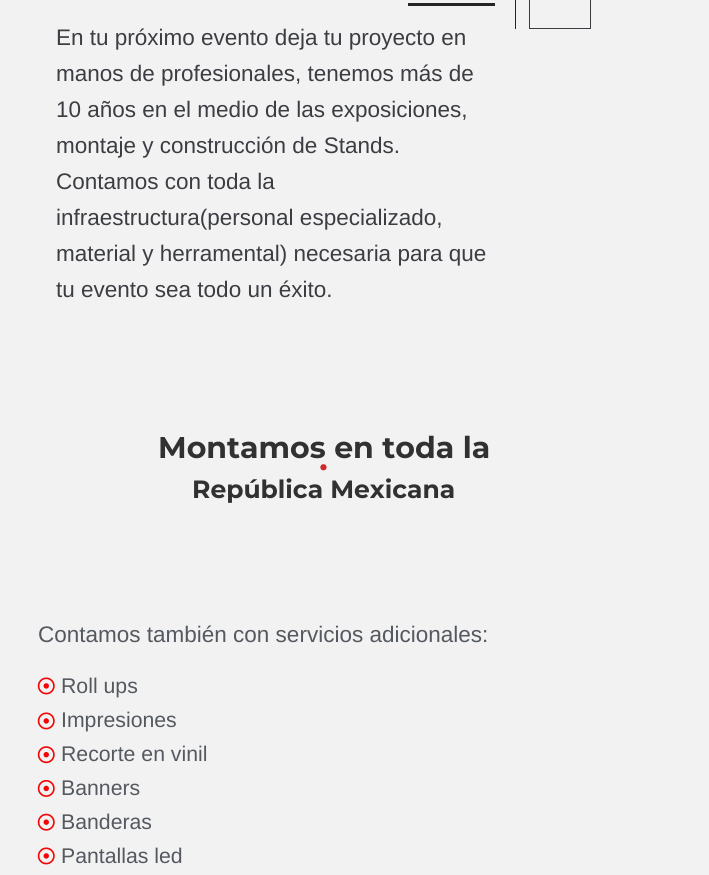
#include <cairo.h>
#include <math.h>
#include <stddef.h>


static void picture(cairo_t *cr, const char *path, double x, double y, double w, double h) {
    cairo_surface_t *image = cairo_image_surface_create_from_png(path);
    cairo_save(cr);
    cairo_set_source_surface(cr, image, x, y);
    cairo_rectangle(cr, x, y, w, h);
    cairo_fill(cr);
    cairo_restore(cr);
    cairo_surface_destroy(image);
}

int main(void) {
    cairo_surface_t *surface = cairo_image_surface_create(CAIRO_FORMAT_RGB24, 709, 875);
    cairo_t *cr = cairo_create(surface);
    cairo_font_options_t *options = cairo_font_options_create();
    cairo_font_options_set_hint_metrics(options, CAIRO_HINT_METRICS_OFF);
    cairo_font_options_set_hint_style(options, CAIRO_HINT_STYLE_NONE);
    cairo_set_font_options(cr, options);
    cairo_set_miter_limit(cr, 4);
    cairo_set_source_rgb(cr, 0.949, 0.949, 0.949);
    cairo_paint(cr);
    cairo_set_source_rgb(cr, 0.145, 0.145, 0.145);
    cairo_rectangle(cr, 515, 0, 1, 29);
    cairo_fill(cr);
    cairo_rectangle(cr, 529.5, -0.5, 61, 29);
    cairo_set_source_rgb(cr, 0.231, 0.239, 0.259);
    cairo_set_line_width(cr, 1);
    cairo_stroke(cr);
    cairo_set_source_rgb(cr, 0.145, 0.145, 0.145);
    cairo_rectangle(cr, 408, 3, 87, 3);
    cairo_fill(cr);
    cairo_select_font_face(cr, "Liberation Sans", CAIRO_FONT_SLANT_NORMAL, CAIRO_FONT_WEIGHT_NORMAL);
    cairo_set_font_size(cr, 22.5);
    cairo_set_source_rgb(cr, 0.231, 0.239, 0.259);
    cairo_move_to(cr, 56, 45);
    cairo_show_text(cr, "En tu próximo evento deja tu proyecto en");
    cairo_move_to(cr, 56, 81);
    cairo_show_text(cr, "manos de profesionales, tenemos más de");
    cairo_move_to(cr, 56, 117);
    cairo_show_text(cr, "10 años en el medio de las exposiciones,");
    cairo_move_to(cr, 56, 153);
    cairo_show_text(cr, "montaje y construcción de Stands.");
    cairo_move_to(cr, 56, 189);
    cairo_show_text(cr, "Contamos con toda la");
    cairo_move_to(cr, 56, 225);
    cairo_show_text(cr, "infraestructura(personal especializado,");
    cairo_move_to(cr, 56, 261);
    cairo_show_text(cr, "material y herramental) necesaria para que");
    cairo_move_to(cr, 56, 297);
    cairo_show_text(cr, "tu evento sea todo un éxito.");
    cairo_select_font_face(cr, "Montserrat Thin", CAIRO_FONT_SLANT_NORMAL, CAIRO_FONT_WEIGHT_NORMAL);
    cairo_set_font_size(cr, 30);
    cairo_set_source_rgb(cr, 0.192, 0.192, 0.192);
    cairo_move_to(cr, 158, 458);
    cairo_show_text(cr, "Montamos en toda la");
    cairo_select_font_face(cr, "Roboto Light", CAIRO_FONT_SLANT_NORMAL, CAIRO_FONT_WEIGHT_NORMAL);
    cairo_set_font_size(cr, 75);
    cairo_set_source_rgb(cr, 0.792, 0.169, 0.169);
    cairo_move_to(cr, 315, 470);
    cairo_show_text(cr, ".");
    cairo_select_font_face(cr, "Montserrat Thin", CAIRO_FONT_SLANT_NORMAL, CAIRO_FONT_WEIGHT_NORMAL);
    cairo_set_font_size(cr, 25);
    cairo_set_source_rgb(cr, 0.192, 0.192, 0.192);
    cairo_move_to(cr, 192, 498);
    cairo_show_text(cr, "República Mexicana");
    cairo_select_font_face(cr, "Liberation Sans", CAIRO_FONT_SLANT_NORMAL, CAIRO_FONT_WEIGHT_NORMAL);
    cairo_set_font_size(cr, 22.5);
    cairo_set_source_rgb(cr, 0.329, 0.349, 0.373);
    cairo_move_to(cr, 38, 642);
    cairo_show_text(cr, "Contamos también con servicios adicionales:");
    picture(cr, "img1.png", 37, 677, 18, 18);
    cairo_set_font_size(cr, 21.25);
    cairo_move_to(cr, 61, 693);
    cairo_show_text(cr, "Roll ups");
    picture(cr, "img1.png", 37, 712, 18, 18);
    cairo_move_to(cr, 61, 727);
    cairo_show_text(cr, "Impresiones");
    picture(cr, "img2.png", 37, 746, 18, 18);
    cairo_move_to(cr, 61, 761);
    cairo_show_text(cr, "Recorte en vinil");
    picture(cr, "img3.png", 37, 780, 18, 17);
    cairo_move_to(cr, 61, 795);
    cairo_show_text(cr, "Banners");
    picture(cr, "img4.png", 37, 813, 18, 18);
    cairo_move_to(cr, 61, 829);
    cairo_show_text(cr, "Banderas");
    picture(cr, "img1.png", 37, 847, 18, 18);
    cairo_move_to(cr, 61, 863);
    cairo_show_text(cr, "Pantallas led");
    cairo_surface_write_to_png(surface, "page.png");
    cairo_font_options_destroy(options);
    cairo_destroy(cr);
    cairo_surface_destroy(surface);
    return 0;
}
